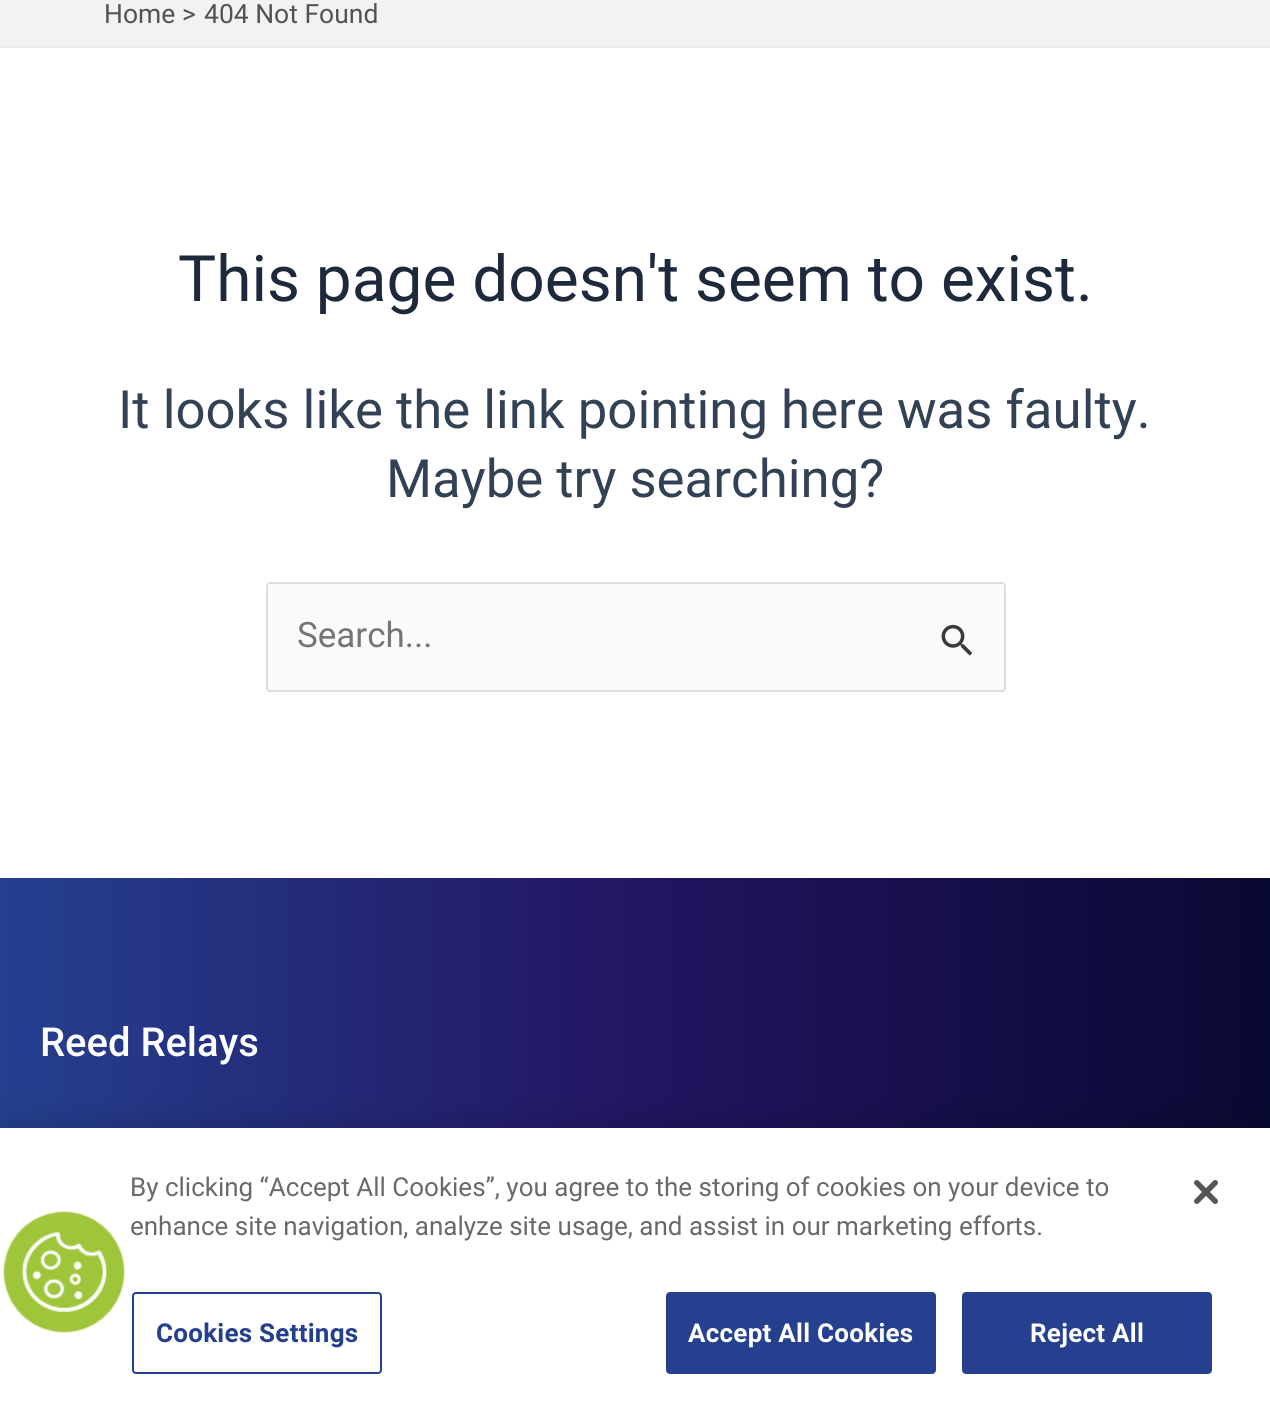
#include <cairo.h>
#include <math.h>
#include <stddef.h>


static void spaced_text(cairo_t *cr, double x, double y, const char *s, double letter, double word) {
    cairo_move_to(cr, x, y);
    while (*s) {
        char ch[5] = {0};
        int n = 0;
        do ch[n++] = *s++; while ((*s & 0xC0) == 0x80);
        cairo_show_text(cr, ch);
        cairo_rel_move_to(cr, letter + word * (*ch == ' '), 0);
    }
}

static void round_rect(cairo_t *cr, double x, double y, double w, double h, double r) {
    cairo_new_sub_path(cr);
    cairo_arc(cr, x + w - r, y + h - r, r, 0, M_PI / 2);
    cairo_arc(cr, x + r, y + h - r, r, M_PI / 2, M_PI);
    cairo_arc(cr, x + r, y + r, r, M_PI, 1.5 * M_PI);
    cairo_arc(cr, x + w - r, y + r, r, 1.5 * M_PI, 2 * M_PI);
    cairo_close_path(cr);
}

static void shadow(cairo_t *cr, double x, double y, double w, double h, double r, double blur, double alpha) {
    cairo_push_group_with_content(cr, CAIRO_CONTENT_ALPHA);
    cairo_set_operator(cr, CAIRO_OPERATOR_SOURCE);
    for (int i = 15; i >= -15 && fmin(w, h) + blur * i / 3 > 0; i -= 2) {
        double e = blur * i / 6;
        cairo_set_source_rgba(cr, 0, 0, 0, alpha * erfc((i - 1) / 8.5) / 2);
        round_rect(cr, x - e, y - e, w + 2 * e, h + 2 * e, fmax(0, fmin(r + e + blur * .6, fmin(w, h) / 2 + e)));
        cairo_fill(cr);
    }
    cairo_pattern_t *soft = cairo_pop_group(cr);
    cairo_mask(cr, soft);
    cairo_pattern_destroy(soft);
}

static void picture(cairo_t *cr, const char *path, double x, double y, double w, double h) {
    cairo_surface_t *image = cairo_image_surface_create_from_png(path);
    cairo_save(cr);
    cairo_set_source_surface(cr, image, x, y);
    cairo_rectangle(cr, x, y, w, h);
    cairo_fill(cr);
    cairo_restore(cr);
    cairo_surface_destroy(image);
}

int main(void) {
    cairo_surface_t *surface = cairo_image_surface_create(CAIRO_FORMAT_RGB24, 1270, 1418);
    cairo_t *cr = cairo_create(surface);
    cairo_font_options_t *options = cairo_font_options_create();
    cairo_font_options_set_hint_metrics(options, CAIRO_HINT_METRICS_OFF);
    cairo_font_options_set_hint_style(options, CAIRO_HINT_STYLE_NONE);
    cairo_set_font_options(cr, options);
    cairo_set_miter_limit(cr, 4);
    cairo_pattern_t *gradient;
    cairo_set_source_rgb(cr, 1, 1, 1);
    cairo_paint(cr);
    cairo_set_source_rgb(cr, 0.949, 0.949, 0.949);
    cairo_rectangle(cr, 0, 0, 1270, 46);
    cairo_fill(cr);
    cairo_set_source_rgb(cr, 0.918, 0.918, 0.918);
    cairo_rectangle(cr, 0, 46, 1270, 2);
    cairo_fill(cr);
    cairo_select_font_face(cr, "Roboto", CAIRO_FONT_SLANT_NORMAL, CAIRO_FONT_WEIGHT_NORMAL);
    cairo_set_font_size(cr, 26.5);
    cairo_set_source_rgb(cr, 0.325, 0.325, 0.325);
    cairo_move_to(cr, 104, 23);
    cairo_show_text(cr, "Home");
    cairo_move_to(cr, 182, 23);
    cairo_show_text(cr, ">");
    cairo_move_to(cr, 204, 23);
    cairo_show_text(cr, "404 Not Found");
    cairo_set_font_size(cr, 64);
    cairo_set_source_rgb(cr, 0.118, 0.161, 0.231);
    cairo_move_to(cr, 178, 301);
    cairo_show_text(cr, "This page doesn't seem to exist.");
    cairo_set_font_size(cr, 52.75);
    cairo_set_source_rgb(cr, 0.2, 0.255, 0.333);
    cairo_move_to(cr, 118, 428);
    cairo_show_text(cr, "It looks like the link pointing here was faulty.");
    cairo_move_to(cr, 386, 497);
    cairo_show_text(cr, "Maybe try searching?");
    cairo_set_source_rgb(cr, 0.98, 0.98, 0.98);
    round_rect(cr, 267, 583, 738, 108, 3);
    cairo_fill_preserve(cr);
    cairo_set_source_rgb(cr, 0.867, 0.867, 0.867);
    cairo_stroke(cr);
    cairo_set_font_size(cr, 35);
    cairo_set_source_rgb(cr, 0.459, 0.459, 0.459);
    cairo_move_to(cr, 297, 647);
    cairo_show_text(cr, "Search...");
    picture(cr, "img1.png", 941, 624, 31, 32);
    gradient = cairo_pattern_create_linear(0, 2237, 1270, 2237);
    cairo_pattern_add_color_stop_rgba(gradient, 0, 0.145, 0.251, 0.561, 1);
    cairo_pattern_add_color_stop_rgba(gradient, 0.5, 0.137, 0.082, 0.384, 1);
    cairo_pattern_add_color_stop_rgba(gradient, 1, 0.031, 0.035, 0.196, 1);
    cairo_set_source(cr, gradient);
    cairo_pattern_destroy(gradient);
    cairo_rectangle(cr, 0, 878, 1270, 250);
    cairo_fill(cr);
    cairo_select_font_face(cr, "Roboto Medium", CAIRO_FONT_SLANT_NORMAL, CAIRO_FONT_WEIGHT_NORMAL);
    cairo_set_font_size(cr, 40);
    cairo_set_source_rgb(cr, 1, 1, 1);
    cairo_move_to(cr, 40, 1056);
    cairo_show_text(cr, "Reed Relays");
    cairo_set_source_rgb(cr, 0, 0, 0);
    shadow(cr, 0, 1128, 1270, 290, 0, 18, 0.2);
    cairo_set_source_rgb(cr, 1, 1, 1);
    cairo_rectangle(cr, 0, 1128, 1270, 290);
    cairo_fill(cr);
    picture(cr, "img2.png", 3, 1211, 122, 122);
    cairo_select_font_face(cr, "Roboto", CAIRO_FONT_SLANT_NORMAL, CAIRO_FONT_WEIGHT_NORMAL);
    cairo_set_font_size(cr, 26);
    cairo_set_source_rgb(cr, 0.412, 0.412, 0.412);
    cairo_move_to(cr, 130, 1196);
    cairo_show_text(cr, "By clicking “Accept All Cookies”, you agree to the storing of cookies on your device to");
    cairo_move_to(cr, 130, 1235);
    cairo_show_text(cr, "enhance site navigation, analyze site usage, and assist in our marketing efforts.");
    round_rect(cr, 133, 1293, 248, 80, 3);
    cairo_set_source_rgb(cr, 0.141, 0.251, 0.561);
    cairo_stroke(cr);
    cairo_select_font_face(cr, "Roboto", CAIRO_FONT_SLANT_NORMAL, CAIRO_FONT_WEIGHT_BOLD);
    spaced_text(cr, 156, 1342, "Cookies Settings", 0.25, 0);
    round_rect(cr, 667, 1293, 268, 80, 3);
    cairo_fill_preserve(cr);
    cairo_stroke(cr);
    cairo_set_source_rgb(cr, 1, 1, 1);
    spaced_text(cr, 688, 1342, "Accept All Cookies", 0.25, 0);
    cairo_set_source_rgb(cr, 0.141, 0.251, 0.561);
    round_rect(cr, 963, 1293, 248, 80, 3);
    cairo_fill_preserve(cr);
    cairo_stroke(cr);
    cairo_set_source_rgb(cr, 1, 1, 1);
    spaced_text(cr, 1030, 1342, "Reject All", 0.25, 0);
    picture(cr, "img3.png", 1194, 1180, 24, 24);
    cairo_surface_write_to_png(surface, "page.png");
    cairo_font_options_destroy(options);
    cairo_destroy(cr);
    cairo_surface_destroy(surface);
    return 0;
}
